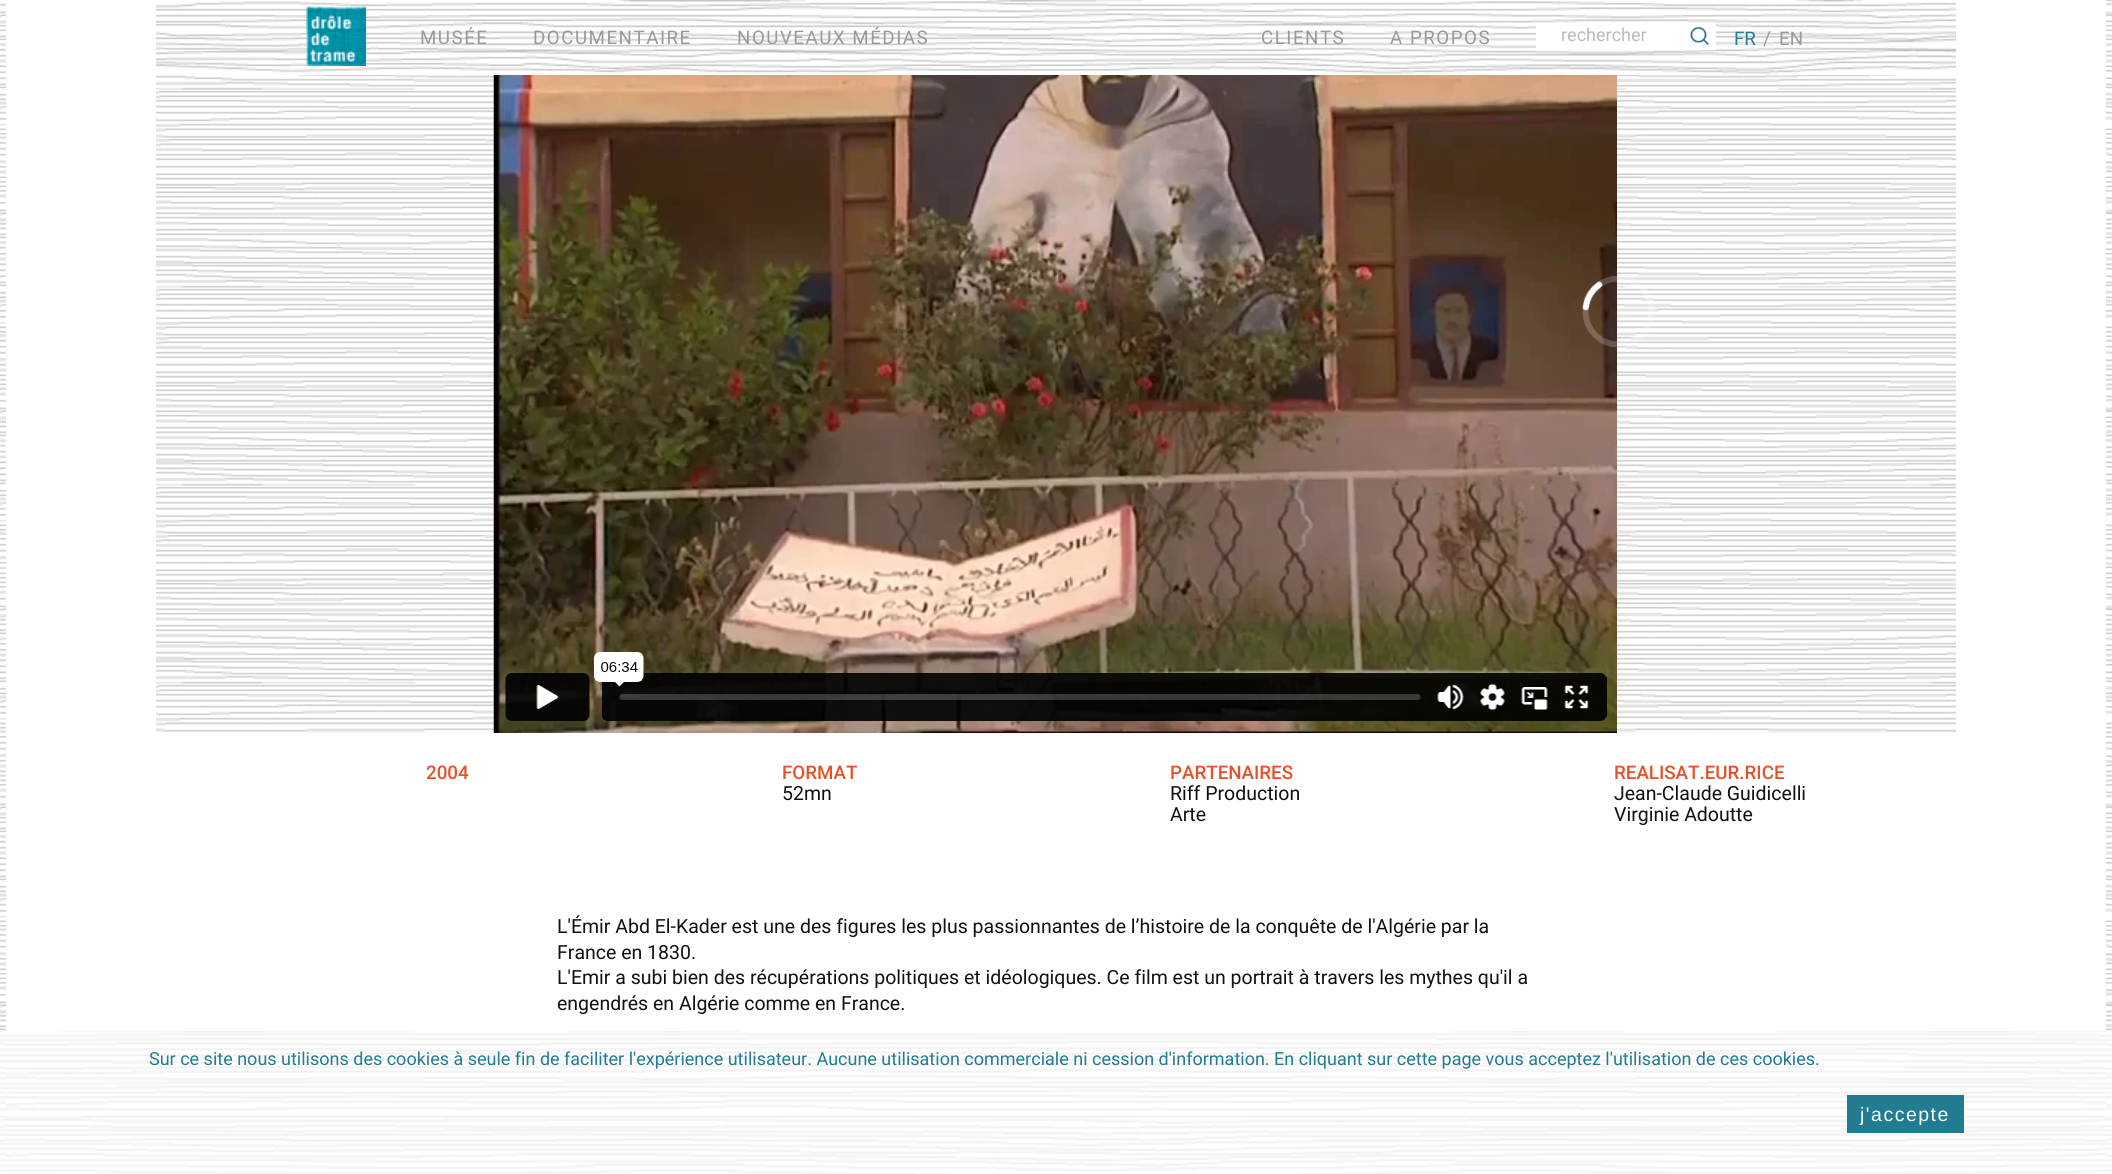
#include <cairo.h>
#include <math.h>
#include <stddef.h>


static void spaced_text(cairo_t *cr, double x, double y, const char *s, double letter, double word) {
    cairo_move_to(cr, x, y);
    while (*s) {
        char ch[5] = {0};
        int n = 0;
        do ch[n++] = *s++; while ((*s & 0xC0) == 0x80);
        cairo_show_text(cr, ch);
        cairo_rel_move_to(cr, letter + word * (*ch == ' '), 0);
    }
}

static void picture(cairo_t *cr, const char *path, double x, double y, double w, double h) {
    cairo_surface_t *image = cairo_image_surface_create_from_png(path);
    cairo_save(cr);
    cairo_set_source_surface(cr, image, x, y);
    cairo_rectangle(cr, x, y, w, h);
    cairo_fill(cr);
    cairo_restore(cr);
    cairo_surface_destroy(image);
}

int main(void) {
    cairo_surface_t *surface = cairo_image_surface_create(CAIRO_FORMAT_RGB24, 2112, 1174);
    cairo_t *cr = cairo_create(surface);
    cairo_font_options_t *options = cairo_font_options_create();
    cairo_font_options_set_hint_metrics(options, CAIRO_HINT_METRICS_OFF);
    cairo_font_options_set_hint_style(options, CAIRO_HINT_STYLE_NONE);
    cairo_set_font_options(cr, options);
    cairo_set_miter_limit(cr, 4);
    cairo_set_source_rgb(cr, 1, 1, 1);
    cairo_paint(cr);
    picture(cr, "img1.png", 0, 0, 2112, 1031);
    cairo_set_source_rgb(cr, 1, 1, 1);
    cairo_rectangle(cr, 6, 0, 2100, 1031);
    cairo_fill(cr);
    picture(cr, "img2.png", 156, 0, 1800, 75);
    picture(cr, "img3.png", 306, 6, 60, 60);
    cairo_select_font_face(cr, "Roboto", CAIRO_FONT_SLANT_NORMAL, CAIRO_FONT_WEIGHT_NORMAL);
    cairo_set_font_size(cr, 18.75);
    cairo_set_source_rgb(cr, 0.6, 0.6, 0.6);
    spaced_text(cr, 420, 44, "MUSÉE", 1.5, 0);
    spaced_text(cr, 533, 44, "DOCUMENTAIRE", 1.5, 0);
    spaced_text(cr, 737, 44, "NOUVEAUX MÉDIAS", 1.5, 0);
    spaced_text(cr, 1261, 44, "CLIENTS", 1.5, 0);
    spaced_text(cr, 1390, 44, "A PROPOS", 1.5, 0);
    cairo_set_source_rgb(cr, 1, 1, 1);
    cairo_rectangle(cr, 1536, 23, 180, 27);
    cairo_fill(cr);
    picture(cr, "img4.png", 1690, 27, 20, 18);
    cairo_set_font_size(cr, 18);
    cairo_set_source_rgb(cr, 0.733, 0.733, 0.733);
    cairo_move_to(cr, 1561, 41);
    cairo_show_text(cr, "rechercher");
    cairo_set_font_size(cr, 18.75);
    cairo_set_source_rgb(cr, 0.133, 0.486, 0.569);
    cairo_move_to(cr, 1734, 45);
    cairo_show_text(cr, "FR");
    cairo_set_font_size(cr, 19.5);
    cairo_set_source_rgb(cr, 0.6, 0.6, 0.6);
    cairo_move_to(cr, 1763, 45);
    cairo_show_text(cr, "/");
    cairo_set_font_size(cr, 18.75);
    cairo_move_to(cr, 1779, 45);
    cairo_show_text(cr, "EN");
    picture(cr, "img5.png", 156, 75, 1800, 658);
    picture(cr, "img6.png", 493, 75, 1161, 658);
    cairo_select_font_face(cr, "Roboto Medium", CAIRO_FONT_SLANT_NORMAL, CAIRO_FONT_WEIGHT_NORMAL);
    cairo_set_source_rgb(cr, 0.91, 0.318, 0.153);
    cairo_move_to(cr, 426, 779);
    cairo_show_text(cr, "2004");
    cairo_move_to(cr, 782, 779);
    cairo_show_text(cr, "FORMAT");
    cairo_select_font_face(cr, "Roboto", CAIRO_FONT_SLANT_NORMAL, CAIRO_FONT_WEIGHT_NORMAL);
    cairo_set_font_size(cr, 19.5);
    cairo_set_source_rgb(cr, 0.067, 0.067, 0.067);
    cairo_move_to(cr, 782, 800);
    cairo_show_text(cr, "52mn");
    cairo_select_font_face(cr, "Roboto Medium", CAIRO_FONT_SLANT_NORMAL, CAIRO_FONT_WEIGHT_NORMAL);
    cairo_set_font_size(cr, 18.75);
    cairo_set_source_rgb(cr, 0.91, 0.318, 0.153);
    cairo_move_to(cr, 1170, 779);
    cairo_show_text(cr, "PARTENAIRES");
    cairo_select_font_face(cr, "Roboto", CAIRO_FONT_SLANT_NORMAL, CAIRO_FONT_WEIGHT_NORMAL);
    cairo_set_font_size(cr, 19.5);
    cairo_set_source_rgb(cr, 0.067, 0.067, 0.067);
    cairo_move_to(cr, 1170, 800);
    cairo_show_text(cr, "Riff Production");
    cairo_move_to(cr, 1170, 821);
    cairo_show_text(cr, "Arte");
    cairo_select_font_face(cr, "Roboto Medium", CAIRO_FONT_SLANT_NORMAL, CAIRO_FONT_WEIGHT_NORMAL);
    cairo_set_font_size(cr, 18.75);
    cairo_set_source_rgb(cr, 0.91, 0.318, 0.153);
    cairo_move_to(cr, 1614, 779);
    cairo_show_text(cr, "REALISAT.EUR.RICE");
    cairo_select_font_face(cr, "Roboto", CAIRO_FONT_SLANT_NORMAL, CAIRO_FONT_WEIGHT_NORMAL);
    cairo_set_font_size(cr, 19.5);
    cairo_set_source_rgb(cr, 0.067, 0.067, 0.067);
    cairo_move_to(cr, 1614, 800);
    cairo_show_text(cr, "Jean-Claude Guidicelli");
    cairo_move_to(cr, 1614, 821);
    cairo_show_text(cr, "Virginie Adoutte");
    cairo_move_to(cr, 557, 933);
    cairo_show_text(cr, "L'Émir Abd El-Kader est une des figures les plus passionnantes de l’histoire de la conquête de l'Algérie par la");
    cairo_move_to(cr, 557, 959);
    cairo_show_text(cr, "France en 1830.");
    cairo_move_to(cr, 557, 984);
    cairo_show_text(cr, "L'Emir a subi bien des récupérations politiques et idéologiques. Ce film est un portrait à travers les mythes qu'il a");
    cairo_move_to(cr, 557, 1010);
    cairo_show_text(cr, "engendrés en Algérie comme en France.");
    picture(cr, "img7.png", 0, 1031, 2112, 143);
    cairo_set_font_size(cr, 18);
    cairo_set_source_rgb(cr, 0.133, 0.486, 0.569);
    cairo_move_to(cr, 149, 1065);
    cairo_show_text(cr, "Sur ce site nous utilisons des cookies à seule fin de faciliter l'expérience utilisateur. Aucune utilisation commerciale ni cession d'information.");
    cairo_move_to(cr, 1274, 1065);
    cairo_show_text(cr, "En cliquant sur cette page vous acceptez l'utilisation de ces cookies.");
    cairo_set_source_rgb(cr, 1, 1, 1);
    cairo_rectangle(cr, 1824, 1067, 81, 2);
    cairo_fill(cr);
    cairo_set_source_rgb(cr, 0.133, 0.486, 0.569);
    cairo_rectangle(cr, 1847, 1095, 117, 38);
    cairo_fill(cr);
    cairo_select_font_face(cr, "Liberation Sans", CAIRO_FONT_SLANT_NORMAL, CAIRO_FONT_WEIGHT_NORMAL);
    cairo_set_font_size(cr, 19.5);
    cairo_set_source_rgb(cr, 1, 1, 1);
    spaced_text(cr, 1860, 1121, "j'accepte", 1.5, 0);
    cairo_surface_write_to_png(surface, "page.png");
    cairo_font_options_destroy(options);
    cairo_destroy(cr);
    cairo_surface_destroy(surface);
    return 0;
}
